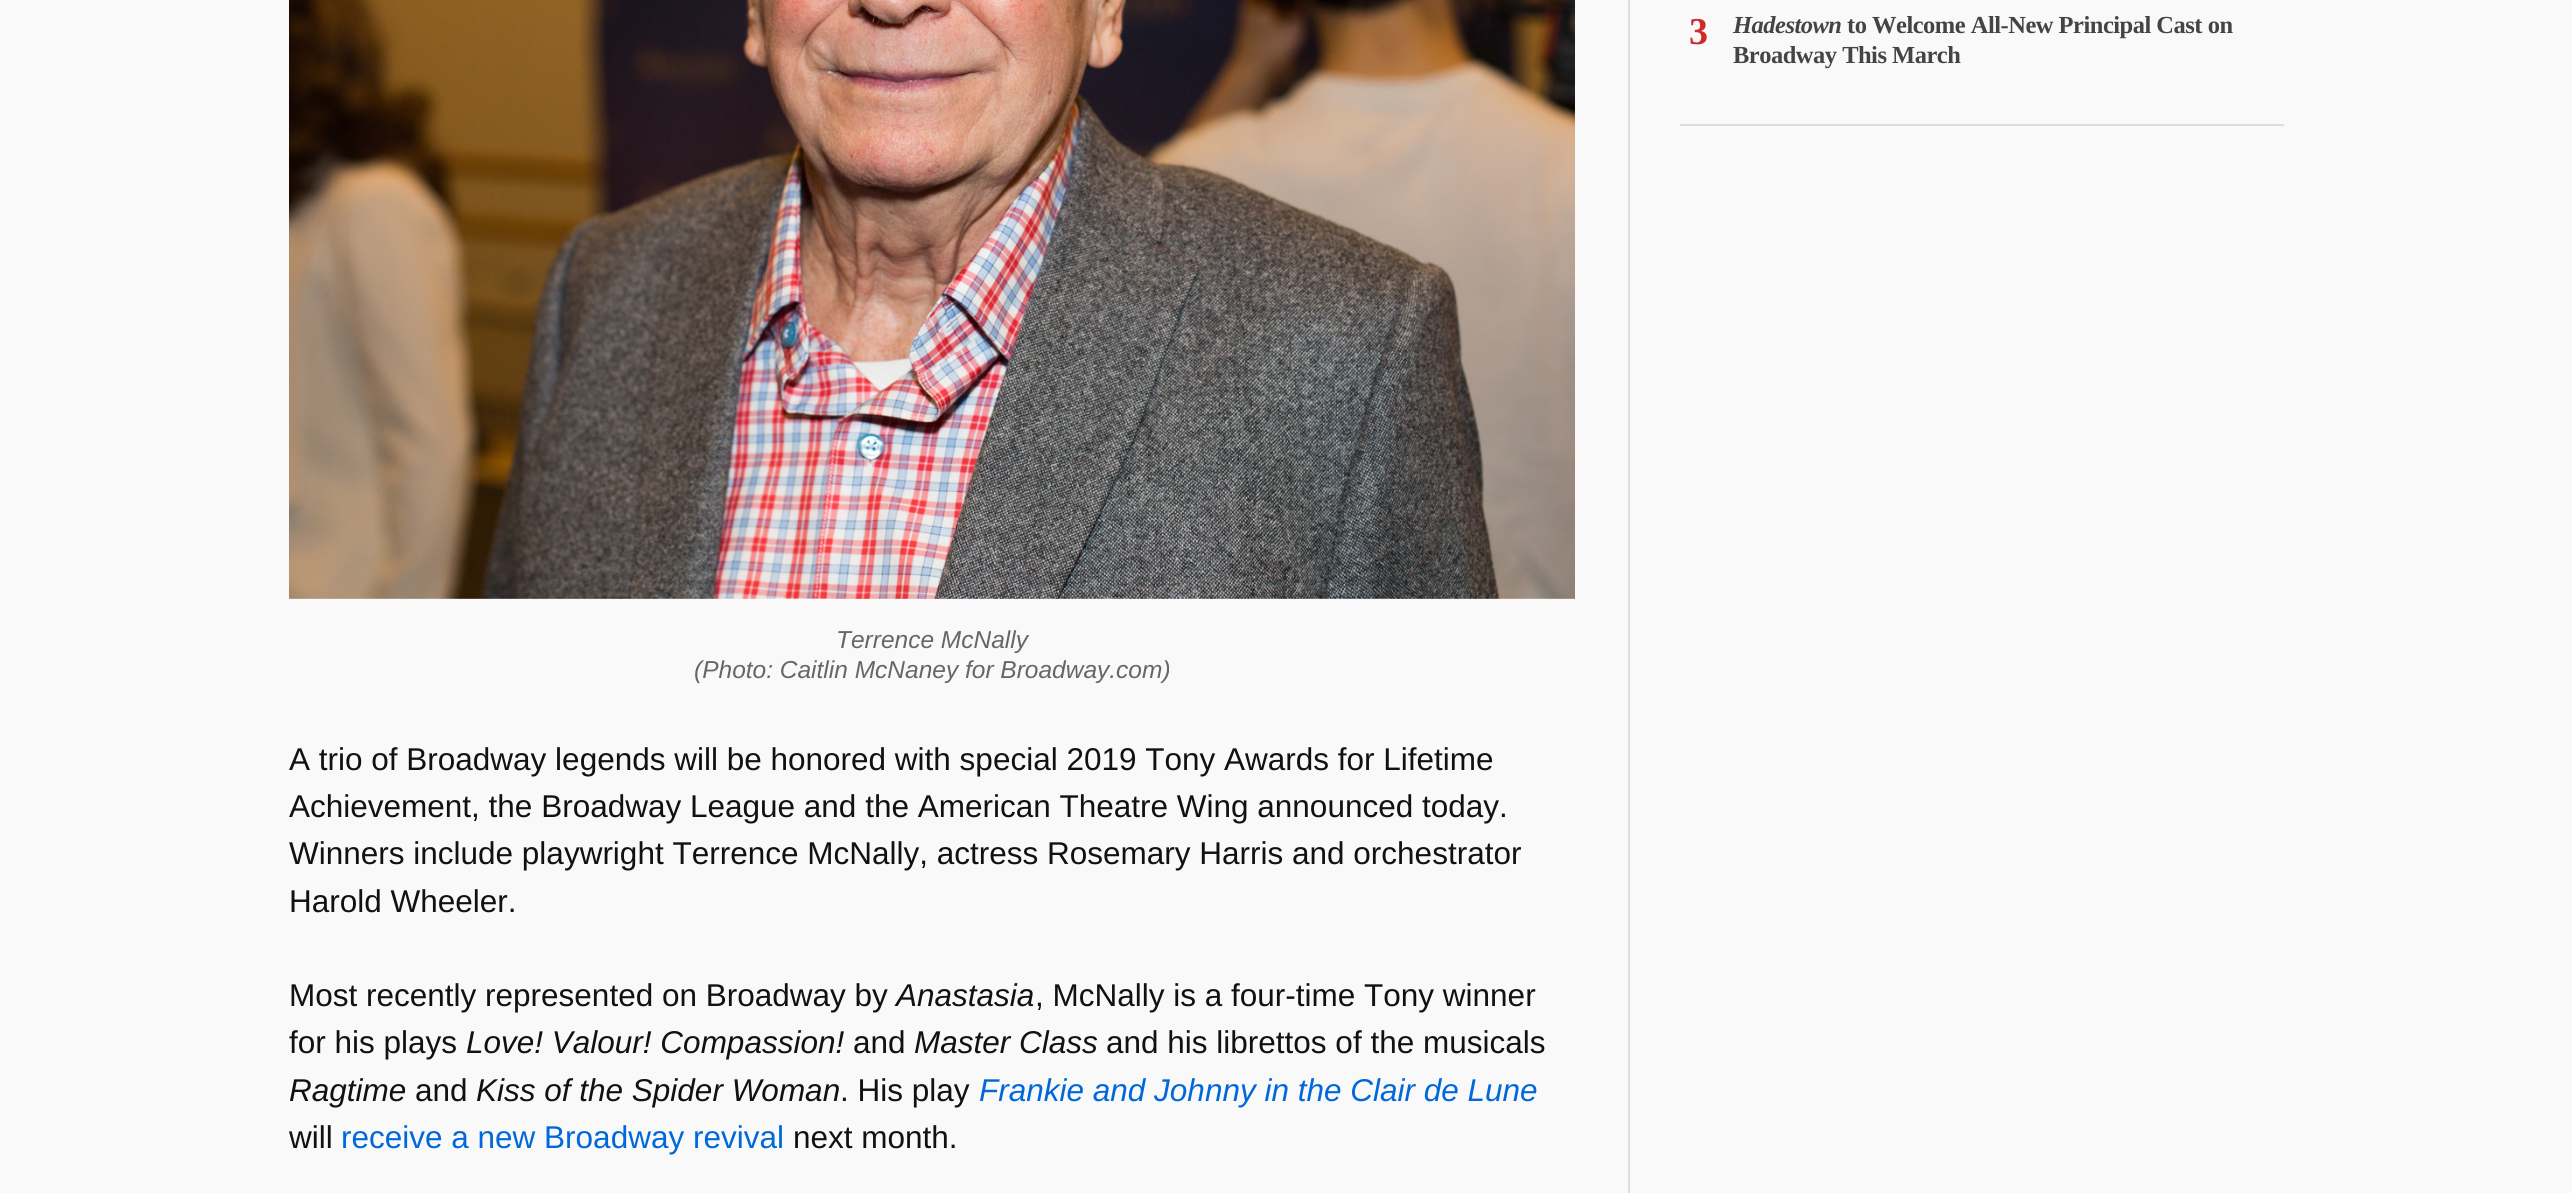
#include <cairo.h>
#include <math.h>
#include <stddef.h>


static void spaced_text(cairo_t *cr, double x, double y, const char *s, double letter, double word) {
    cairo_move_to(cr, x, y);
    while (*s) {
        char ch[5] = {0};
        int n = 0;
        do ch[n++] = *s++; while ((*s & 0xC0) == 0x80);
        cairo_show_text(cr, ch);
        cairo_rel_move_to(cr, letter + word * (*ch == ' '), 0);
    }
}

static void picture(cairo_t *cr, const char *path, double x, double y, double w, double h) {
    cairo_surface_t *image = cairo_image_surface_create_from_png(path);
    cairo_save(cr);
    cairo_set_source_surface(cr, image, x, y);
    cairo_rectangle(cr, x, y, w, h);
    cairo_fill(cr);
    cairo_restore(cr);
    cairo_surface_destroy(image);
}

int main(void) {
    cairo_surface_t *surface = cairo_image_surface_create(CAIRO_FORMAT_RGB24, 2572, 1193);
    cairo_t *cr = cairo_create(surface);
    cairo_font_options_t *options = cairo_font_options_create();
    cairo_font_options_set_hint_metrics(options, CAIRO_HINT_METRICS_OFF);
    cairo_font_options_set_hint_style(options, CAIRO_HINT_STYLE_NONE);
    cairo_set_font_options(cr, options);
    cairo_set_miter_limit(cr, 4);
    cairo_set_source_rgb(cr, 0.976, 0.976, 0.976);
    cairo_paint(cr);
    cairo_set_source_rgb(cr, 0.867, 0.867, 0.867);
    cairo_rectangle(cr, 1628, 0, 2, 1193);
    cairo_fill(cr);
    cairo_select_font_face(cr, "Liberation Serif", CAIRO_FONT_SLANT_NORMAL, CAIRO_FONT_WEIGHT_BOLD);
    cairo_set_font_size(cr, 38);
    cairo_set_source_rgb(cr, 0.8, 0.173, 0.173);
    spaced_text(cr, 1689, 44, "3", -2, 0);
    cairo_select_font_face(cr, "Liberation Serif", CAIRO_FONT_SLANT_ITALIC, CAIRO_FONT_WEIGHT_BOLD);
    cairo_set_font_size(cr, 24.5);
    cairo_set_source_rgb(cr, 0.267, 0.267, 0.267);
    spaced_text(cr, 1733, 33, "Hadestown", -0.5, 0);
    cairo_select_font_face(cr, "Liberation Serif", CAIRO_FONT_SLANT_NORMAL, CAIRO_FONT_WEIGHT_BOLD);
    spaced_text(cr, 1847, 33, "to Welcome All-New Principal Cast on", -0.5, 0);
    spaced_text(cr, 1733, 63, "Broadway This March", -0.5, 0);
    cairo_set_source_rgb(cr, 0.867, 0.867, 0.867);
    cairo_rectangle(cr, 1680, 124, 604, 2);
    cairo_fill(cr);
    picture(cr, "img1.png", 289, 0, 1286, 599);
    cairo_select_font_face(cr, "Liberation Sans", CAIRO_FONT_SLANT_ITALIC, CAIRO_FONT_WEIGHT_NORMAL);
    cairo_set_source_rgb(cr, 0.4, 0.4, 0.4);
    cairo_move_to(cr, 836, 648);
    cairo_show_text(cr, "Terrence McNally");
    cairo_move_to(cr, 694, 678);
    cairo_show_text(cr, "(Photo: Caitlin McNaney for Broadway.com)");
    cairo_select_font_face(cr, "Liberation Sans", CAIRO_FONT_SLANT_NORMAL, CAIRO_FONT_WEIGHT_NORMAL);
    cairo_set_font_size(cr, 31.5);
    cairo_set_source_rgb(cr, 0.067, 0.067, 0.067);
    cairo_move_to(cr, 289, 770);
    cairo_show_text(cr, "A trio of Broadway legends will be honored with special 2019 Tony Awards for Lifetime");
    cairo_move_to(cr, 289, 817);
    cairo_show_text(cr, "Achievement, the Broadway League and the American Theatre Wing announced today.");
    cairo_move_to(cr, 289, 864);
    cairo_show_text(cr, "Winners include playwright Terrence McNally, actress Rosemary Harris and orchestrator");
    cairo_move_to(cr, 289, 912);
    cairo_show_text(cr, "Harold Wheeler.");
    cairo_move_to(cr, 289, 1006);
    cairo_show_text(cr, "Most recently represented on Broadway by");
    cairo_select_font_face(cr, "Liberation Sans", CAIRO_FONT_SLANT_ITALIC, CAIRO_FONT_WEIGHT_NORMAL);
    cairo_move_to(cr, 896, 1006);
    cairo_show_text(cr, "Anastasia");
    cairo_select_font_face(cr, "Liberation Sans", CAIRO_FONT_SLANT_NORMAL, CAIRO_FONT_WEIGHT_NORMAL);
    cairo_move_to(cr, 1035, 1006);
    cairo_show_text(cr, ", McNally is a four-time Tony winner");
    cairo_move_to(cr, 289, 1053);
    cairo_show_text(cr, "for his plays");
    cairo_select_font_face(cr, "Liberation Sans", CAIRO_FONT_SLANT_ITALIC, CAIRO_FONT_WEIGHT_NORMAL);
    cairo_move_to(cr, 466, 1053);
    cairo_show_text(cr, "Love! Valour! Compassion!");
    cairo_select_font_face(cr, "Liberation Sans", CAIRO_FONT_SLANT_NORMAL, CAIRO_FONT_WEIGHT_NORMAL);
    cairo_move_to(cr, 853, 1053);
    cairo_show_text(cr, "and");
    cairo_select_font_face(cr, "Liberation Sans", CAIRO_FONT_SLANT_ITALIC, CAIRO_FONT_WEIGHT_NORMAL);
    cairo_move_to(cr, 914, 1053);
    cairo_show_text(cr, "Master Class");
    cairo_select_font_face(cr, "Liberation Sans", CAIRO_FONT_SLANT_NORMAL, CAIRO_FONT_WEIGHT_NORMAL);
    cairo_move_to(cr, 1106, 1053);
    cairo_show_text(cr, "and his librettos of the musicals");
    cairo_select_font_face(cr, "Liberation Sans", CAIRO_FONT_SLANT_ITALIC, CAIRO_FONT_WEIGHT_NORMAL);
    cairo_move_to(cr, 289, 1101);
    cairo_show_text(cr, "Ragtime");
    cairo_select_font_face(cr, "Liberation Sans", CAIRO_FONT_SLANT_NORMAL, CAIRO_FONT_WEIGHT_NORMAL);
    cairo_move_to(cr, 415, 1101);
    cairo_show_text(cr, "and");
    cairo_select_font_face(cr, "Liberation Sans", CAIRO_FONT_SLANT_ITALIC, CAIRO_FONT_WEIGHT_NORMAL);
    cairo_move_to(cr, 476, 1101);
    cairo_show_text(cr, "Kiss of the Spider Woman");
    cairo_select_font_face(cr, "Liberation Sans", CAIRO_FONT_SLANT_NORMAL, CAIRO_FONT_WEIGHT_NORMAL);
    cairo_move_to(cr, 840, 1101);
    cairo_show_text(cr, ". His play");
    cairo_select_font_face(cr, "Liberation Sans", CAIRO_FONT_SLANT_ITALIC, CAIRO_FONT_WEIGHT_NORMAL);
    cairo_set_source_rgb(cr, 0, 0.408, 0.851);
    cairo_move_to(cr, 979, 1101);
    cairo_show_text(cr, "Frankie and Johnny in the Clair de Lune");
    cairo_select_font_face(cr, "Liberation Sans", CAIRO_FONT_SLANT_NORMAL, CAIRO_FONT_WEIGHT_NORMAL);
    cairo_set_source_rgb(cr, 0.067, 0.067, 0.067);
    cairo_move_to(cr, 289, 1148);
    cairo_show_text(cr, "will");
    cairo_set_source_rgb(cr, 0, 0.408, 0.851);
    cairo_move_to(cr, 341, 1148);
    cairo_show_text(cr, "receive a new Broadway revival");
    cairo_set_source_rgb(cr, 0.067, 0.067, 0.067);
    cairo_move_to(cr, 793, 1148);
    cairo_show_text(cr, "next month.");
    cairo_surface_write_to_png(surface, "page.png");
    cairo_font_options_destroy(options);
    cairo_destroy(cr);
    cairo_surface_destroy(surface);
    return 0;
}
